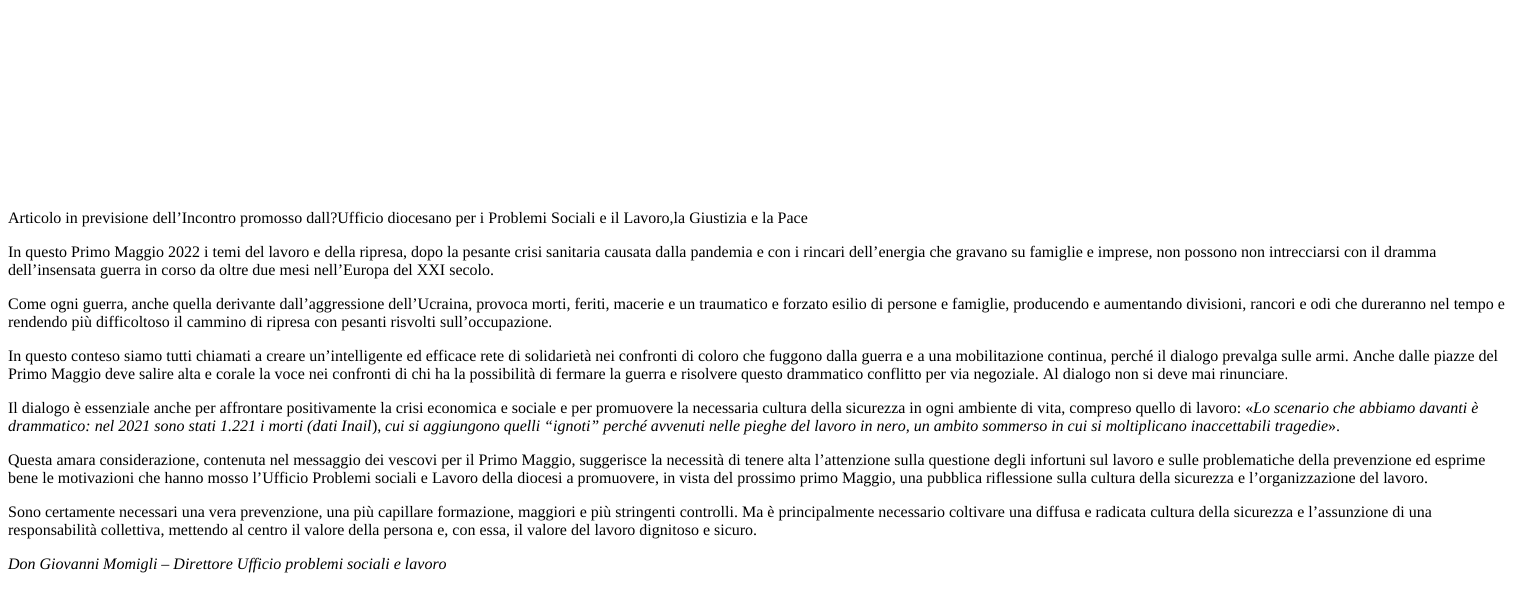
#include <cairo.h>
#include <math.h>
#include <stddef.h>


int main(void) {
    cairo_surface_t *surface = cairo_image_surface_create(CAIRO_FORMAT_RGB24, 1519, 589);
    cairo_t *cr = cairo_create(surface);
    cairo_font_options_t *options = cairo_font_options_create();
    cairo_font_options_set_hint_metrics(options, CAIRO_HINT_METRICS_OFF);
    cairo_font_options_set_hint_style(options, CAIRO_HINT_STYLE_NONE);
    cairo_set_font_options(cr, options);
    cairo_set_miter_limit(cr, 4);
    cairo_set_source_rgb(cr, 1, 1, 1);
    cairo_paint(cr);
    cairo_select_font_face(cr, "Liberation Serif", CAIRO_FONT_SLANT_NORMAL, CAIRO_FONT_WEIGHT_NORMAL);
    cairo_set_font_size(cr, 16);
    cairo_set_source_rgb(cr, 0, 0, 0);
    cairo_move_to(cr, 8, 223);
    cairo_show_text(cr, "Articolo in previsione dell’Incontro promosso dall?Ufficio diocesano per i Problemi Sociali e il Lavoro,la Giustizia e la Pace");
    cairo_move_to(cr, 8, 257);
    cairo_show_text(cr, "In questo Primo Maggio 2022 i temi del lavoro e della ripresa, dopo la pesante crisi sanitaria causata dalla pandemia e con i rincari dell’energia che gravano su famiglie e imprese, non possono non intrecciarsi con il dramma");
    cairo_move_to(cr, 8, 275);
    cairo_show_text(cr, "dell’insensata guerra in corso da oltre due mesi nell’Europa del XXI secolo.");
    cairo_move_to(cr, 8, 309);
    cairo_show_text(cr, "Come ogni guerra, anche quella derivante dall’aggressione dell’Ucraina, provoca morti, feriti, macerie e un traumatico e forzato esilio di persone e famiglie, producendo e aumentando divisioni, rancori e odi che dureranno nel tempo e");
    cairo_move_to(cr, 8, 327);
    cairo_show_text(cr, "rendendo più difficoltoso il cammino di ripresa con pesanti risvolti sull’occupazione.");
    cairo_move_to(cr, 8, 361);
    cairo_show_text(cr, "In questo conteso siamo tutti chiamati a creare un’intelligente ed efficace rete di solidarietà nei confronti di coloro che fuggono dalla guerra e a una mobilitazione continua, perché il dialogo prevalga sulle armi. Anche dalle piazze del");
    cairo_move_to(cr, 8, 379);
    cairo_show_text(cr, "Primo Maggio deve salire alta e corale la voce nei confronti di chi ha la possibilità di fermare la guerra e risolvere questo drammatico conflitto per via negoziale. Al dialogo non si deve mai rinunciare.");
    cairo_move_to(cr, 8, 413);
    cairo_show_text(cr, "Il dialogo è essenziale anche per affrontare positivamente la crisi economica e sociale e per promuovere la necessaria cultura della sicurezza in ogni ambiente di vita, compreso quello di lavoro: «");
    cairo_select_font_face(cr, "Liberation Serif", CAIRO_FONT_SLANT_ITALIC, CAIRO_FONT_WEIGHT_NORMAL);
    cairo_move_to(cr, 1253, 413);
    cairo_show_text(cr, "Lo scenario che abbiamo davanti è");
    cairo_move_to(cr, 8, 431);
    cairo_show_text(cr, "drammatico: nel 2021 sono stati 1.221 i morti (dati Inail");
    cairo_select_font_face(cr, "Liberation Serif", CAIRO_FONT_SLANT_NORMAL, CAIRO_FONT_WEIGHT_NORMAL);
    cairo_move_to(cr, 372, 431);
    cairo_show_text(cr, "),");
    cairo_select_font_face(cr, "Liberation Serif", CAIRO_FONT_SLANT_ITALIC, CAIRO_FONT_WEIGHT_NORMAL);
    cairo_move_to(cr, 385, 431);
    cairo_show_text(cr, "cui si aggiungono quelli “ignoti” perché avvenuti nelle pieghe del lavoro in nero, un ambito sommerso in cui si moltiplicano inaccettabili tragedie");
    cairo_select_font_face(cr, "Liberation Serif", CAIRO_FONT_SLANT_NORMAL, CAIRO_FONT_WEIGHT_NORMAL);
    cairo_move_to(cr, 1328, 431);
    cairo_show_text(cr, "».");
    cairo_move_to(cr, 8, 465);
    cairo_show_text(cr, "Questa amara considerazione, contenuta nel messaggio dei vescovi per il Primo Maggio, suggerisce la necessità di tenere alta l’attenzione sulla questione degli infortuni sul lavoro e sulle problematiche della prevenzione ed esprime");
    cairo_move_to(cr, 8, 483);
    cairo_show_text(cr, "bene le motivazioni che hanno mosso l’Ufficio Problemi sociali e Lavoro della diocesi a promuovere, in vista del prossimo primo Maggio, una pubblica riflessione sulla cultura della sicurezza e l’organizzazione del lavoro.");
    cairo_move_to(cr, 8, 517);
    cairo_show_text(cr, "Sono certamente necessari una vera prevenzione, una più capillare formazione, maggiori e più stringenti controlli. Ma è principalmente necessario coltivare una diffusa e radicata cultura della sicurezza e l’assunzione di una");
    cairo_move_to(cr, 8, 535);
    cairo_show_text(cr, "responsabilità collettiva, mettendo al centro il valore della persona e, con essa, il valore del lavoro dignitoso e sicuro.");
    cairo_select_font_face(cr, "Liberation Serif", CAIRO_FONT_SLANT_ITALIC, CAIRO_FONT_WEIGHT_NORMAL);
    cairo_move_to(cr, 8, 569);
    cairo_show_text(cr, "Don Giovanni Momigli – Direttore Ufficio problemi sociali e lavoro");
    cairo_surface_write_to_png(surface, "page.png");
    cairo_font_options_destroy(options);
    cairo_destroy(cr);
    cairo_surface_destroy(surface);
    return 0;
}
